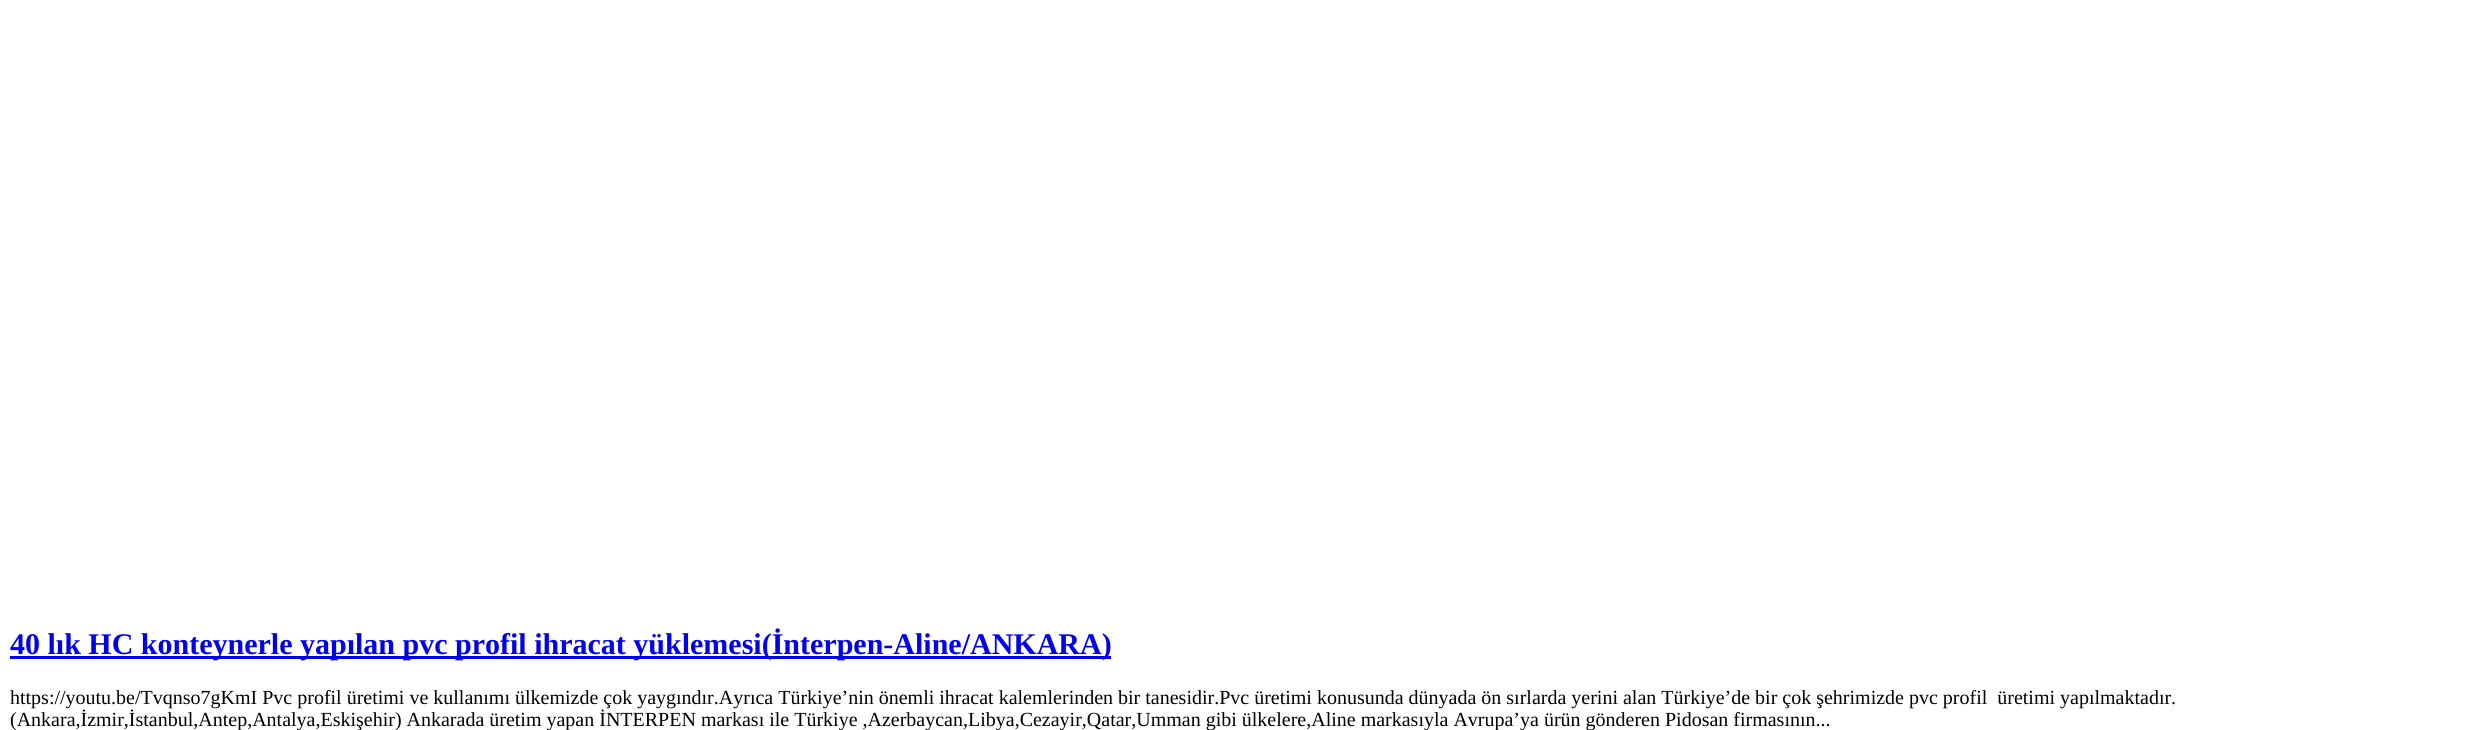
#include <cairo.h>
#include <math.h>
#include <stddef.h>


int main(void) {
    cairo_surface_t *surface = cairo_image_surface_create(CAIRO_FORMAT_RGB24, 2469, 730);
    cairo_t *cr = cairo_create(surface);
    cairo_font_options_t *options = cairo_font_options_create();
    cairo_font_options_set_hint_metrics(options, CAIRO_HINT_METRICS_OFF);
    cairo_font_options_set_hint_style(options, CAIRO_HINT_STYLE_NONE);
    cairo_set_font_options(cr, options);
    cairo_set_miter_limit(cr, 4);
    cairo_set_source_rgb(cr, 1, 1, 1);
    cairo_paint(cr);
    cairo_set_source_rgb(cr, 0, 0, 0.933);
    cairo_rectangle(cr, 10, 656, 1101, 3);
    cairo_fill(cr);
    cairo_select_font_face(cr, "Liberation Serif", CAIRO_FONT_SLANT_NORMAL, CAIRO_FONT_WEIGHT_BOLD);
    cairo_set_font_size(cr, 30);
    cairo_move_to(cr, 10, 654);
    cairo_show_text(cr, "40 lık HC konteynerle yapılan pvc profil ihracat yüklemesi(İnterpen-Aline/ANKARA)");
    cairo_select_font_face(cr, "Liberation Serif", CAIRO_FONT_SLANT_NORMAL, CAIRO_FONT_WEIGHT_NORMAL);
    cairo_set_font_size(cr, 20);
    cairo_set_source_rgb(cr, 0, 0, 0);
    cairo_move_to(cr, 10, 704);
    cairo_show_text(cr, "https://youtu.be/Tvqnso7gKmI Pvc profil üretimi ve kullanımı ülkemizde çok yaygındır.Ayrıca Türkiye’nin önemli ihracat kalemlerinden bir tanesidir.Pvc üretimi konusunda dünyada ön sırlarda yerini alan Türkiye’de bir çok şehrimizde pvc profil  üretimi yapılmaktadır.");
    cairo_move_to(cr, 10, 726);
    cairo_show_text(cr, "(Ankara,İzmir,İstanbul,Antep,Antalya,Eskişehir) Ankarada üretim yapan İNTERPEN markası ile Türkiye ,Azerbaycan,Libya,Cezayir,Qatar,Umman gibi ülkelere,Aline markasıyla Avrupa’ya ürün gönderen Pidosan firmasının...");
    cairo_surface_write_to_png(surface, "page.png");
    cairo_font_options_destroy(options);
    cairo_destroy(cr);
    cairo_surface_destroy(surface);
    return 0;
}
